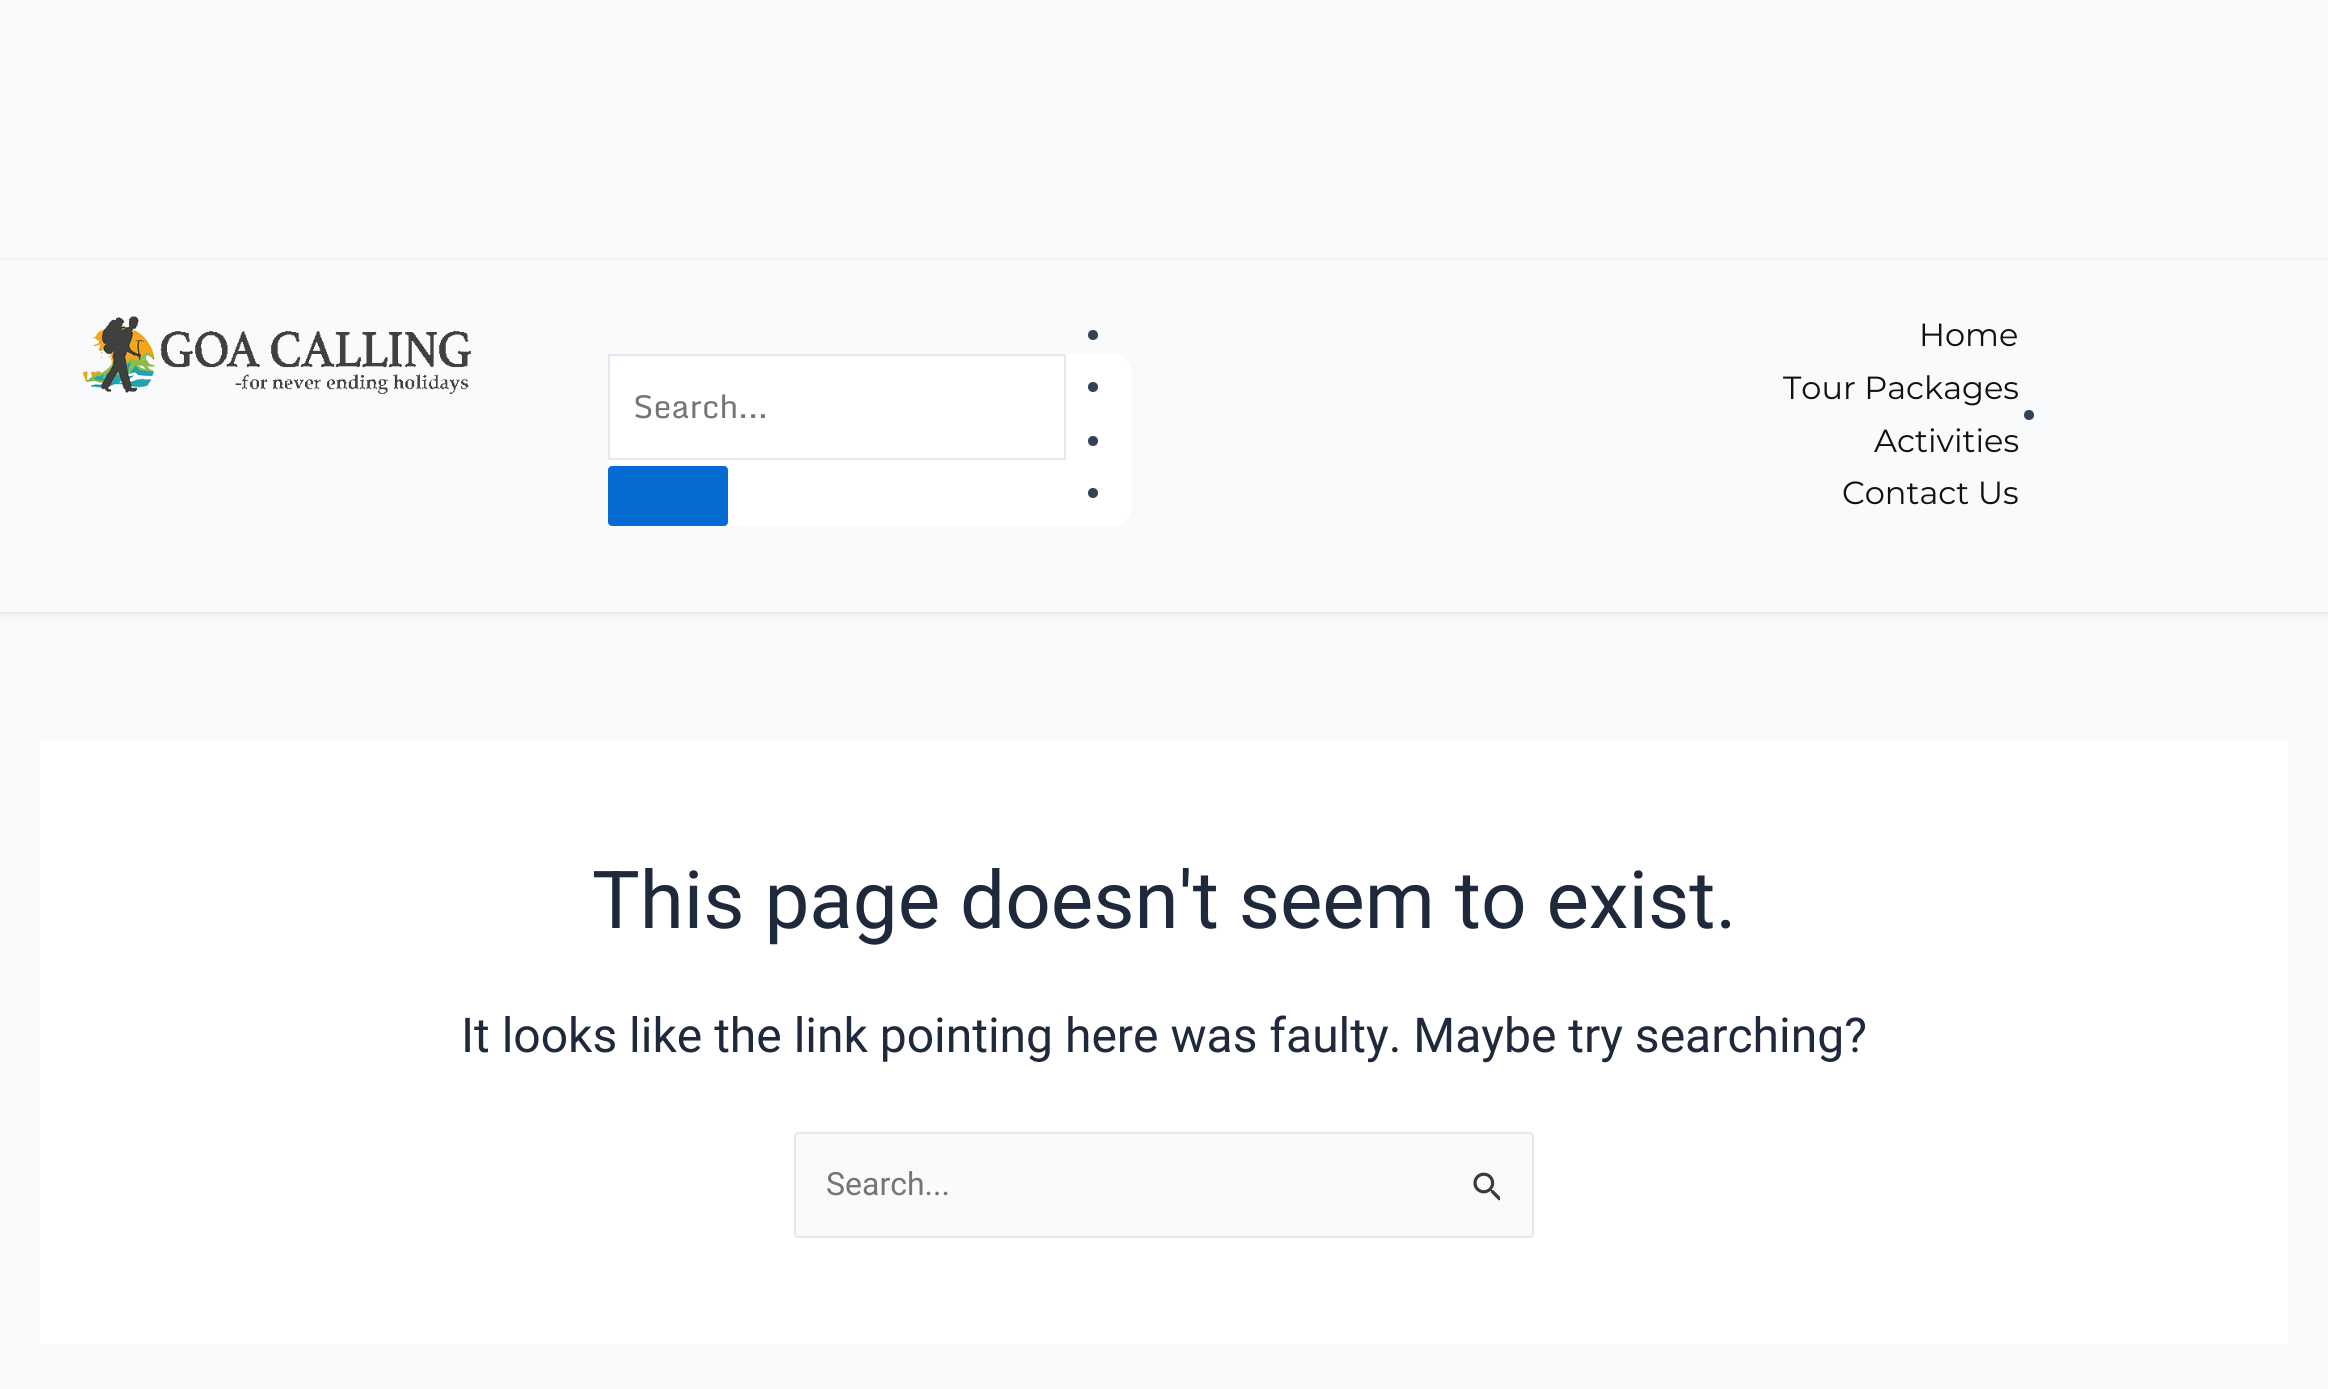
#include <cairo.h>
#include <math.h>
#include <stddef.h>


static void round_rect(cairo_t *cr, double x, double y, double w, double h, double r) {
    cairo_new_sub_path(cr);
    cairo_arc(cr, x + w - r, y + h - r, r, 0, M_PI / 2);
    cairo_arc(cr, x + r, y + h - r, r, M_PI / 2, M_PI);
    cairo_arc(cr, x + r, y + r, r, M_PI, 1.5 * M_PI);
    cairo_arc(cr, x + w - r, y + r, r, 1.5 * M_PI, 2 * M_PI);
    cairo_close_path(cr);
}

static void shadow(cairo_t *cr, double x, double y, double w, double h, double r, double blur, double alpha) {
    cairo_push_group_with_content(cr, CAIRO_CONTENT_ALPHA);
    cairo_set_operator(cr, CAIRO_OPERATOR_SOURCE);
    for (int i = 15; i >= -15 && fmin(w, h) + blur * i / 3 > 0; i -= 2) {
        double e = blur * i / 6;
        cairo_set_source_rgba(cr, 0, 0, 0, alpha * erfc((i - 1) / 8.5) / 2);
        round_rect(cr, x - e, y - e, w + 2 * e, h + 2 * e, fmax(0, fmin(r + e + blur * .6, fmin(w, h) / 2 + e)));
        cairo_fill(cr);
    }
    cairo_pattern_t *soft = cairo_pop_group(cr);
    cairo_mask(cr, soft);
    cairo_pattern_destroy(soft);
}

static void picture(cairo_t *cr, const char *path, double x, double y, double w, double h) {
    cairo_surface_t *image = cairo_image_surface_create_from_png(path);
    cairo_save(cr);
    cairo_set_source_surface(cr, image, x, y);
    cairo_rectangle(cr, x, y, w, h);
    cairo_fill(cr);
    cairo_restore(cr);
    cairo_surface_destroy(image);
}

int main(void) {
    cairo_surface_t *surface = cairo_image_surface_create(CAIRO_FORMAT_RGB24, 2328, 1389);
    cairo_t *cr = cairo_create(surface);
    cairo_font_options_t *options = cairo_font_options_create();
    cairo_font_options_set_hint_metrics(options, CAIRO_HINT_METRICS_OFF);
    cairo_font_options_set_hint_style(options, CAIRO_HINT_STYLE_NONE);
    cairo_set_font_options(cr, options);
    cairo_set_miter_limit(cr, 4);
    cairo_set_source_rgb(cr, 0.976, 0.98, 0.984);
    cairo_paint(cr);
    cairo_save(cr);
    cairo_set_fill_rule(cr, CAIRO_FILL_RULE_EVEN_ODD);
    cairo_new_path(cr);
    cairo_move_to(cr, 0, 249);
    cairo_line_to(cr, 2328, 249);
    cairo_line_to(cr, 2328, 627);
    cairo_line_to(cr, 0, 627);
    cairo_close_path(cr);
    cairo_move_to(cr, 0, 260);
    cairo_line_to(cr, 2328, 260);
    cairo_line_to(cr, 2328, 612);
    cairo_line_to(cr, 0, 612);
    cairo_close_path(cr);
    cairo_clip(cr);
    cairo_set_source_rgb(cr, 0.635, 0.635, 0.635);
    shadow(cr, 0, 262, 2328, 352, 0, 4, 0.28);
    cairo_restore(cr);
    picture(cr, "img1.png", 82, 316, 389, 78);
    cairo_set_source_rgb(cr, 1, 1, 1);
    round_rect(cr, 608, 354, 524, 172, 20);
    cairo_fill(cr);
    cairo_rectangle(cr, 610, 356, 8, 8);
    cairo_fill(cr);
    cairo_rectangle(cr, 609, 355, 456, 104);
    cairo_set_source_rgb(cr, 0.886, 0.91, 0.941);
    cairo_stroke(cr);
    cairo_select_font_face(cr, "Monda", CAIRO_FONT_SLANT_NORMAL, CAIRO_FONT_WEIGHT_NORMAL);
    cairo_set_font_size(cr, 32);
    cairo_set_source_rgb(cr, 0.459, 0.459, 0.459);
    cairo_move_to(cr, 633, 418);
    cairo_show_text(cr, "Search...");
    cairo_set_source_rgb(cr, 0.016, 0.42, 0.824);
    round_rect(cr, 608, 466, 120, 60, 4);
    cairo_fill(cr);
    cairo_set_source_rgb(cr, 0.2, 0.255, 0.333);
    cairo_arc(cr, 1093, 335, 5, 0, 2 * M_PI);
    cairo_fill(cr);
    cairo_select_font_face(cr, "Montserrat", CAIRO_FONT_SLANT_NORMAL, CAIRO_FONT_WEIGHT_NORMAL);
    cairo_set_source_rgb(cr, 0.067, 0.067, 0.067);
    cairo_move_to(cr, 1919, 346);
    cairo_show_text(cr, "Home");
    cairo_set_source_rgb(cr, 0.2, 0.255, 0.333);
    cairo_new_path(cr);
    cairo_arc(cr, 1093, 387, 5, 0, 2 * M_PI);
    cairo_fill(cr);
    cairo_set_source_rgb(cr, 0.067, 0.067, 0.067);
    cairo_move_to(cr, 1783, 399);
    cairo_show_text(cr, "Tour Packages");
    cairo_set_source_rgb(cr, 0.2, 0.255, 0.333);
    cairo_new_path(cr);
    cairo_arc(cr, 1093, 441, 5, 0, 2 * M_PI);
    cairo_fill(cr);
    cairo_set_source_rgb(cr, 0.067, 0.067, 0.067);
    cairo_move_to(cr, 1874, 452);
    cairo_show_text(cr, "Activities");
    cairo_set_source_rgb(cr, 0.2, 0.255, 0.333);
    cairo_new_path(cr);
    cairo_arc(cr, 1093, 493, 5, 0, 2 * M_PI);
    cairo_fill(cr);
    cairo_set_source_rgb(cr, 0.067, 0.067, 0.067);
    cairo_move_to(cr, 1842, 504);
    cairo_show_text(cr, "Contact Us");
    cairo_set_source_rgb(cr, 0.2, 0.255, 0.333);
    cairo_new_path(cr);
    cairo_arc(cr, 2029, 415, 5, 0, 2 * M_PI);
    cairo_fill(cr);
    cairo_set_source_rgb(cr, 1, 1, 1);
    cairo_rectangle(cr, 40, 740, 2248, 604);
    cairo_fill(cr);
    cairo_select_font_face(cr, "Roboto", CAIRO_FONT_SLANT_NORMAL, CAIRO_FONT_WEIGHT_NORMAL);
    cairo_set_font_size(cr, 80);
    cairo_set_source_rgb(cr, 0.118, 0.161, 0.231);
    cairo_move_to(cr, 592, 928);
    cairo_show_text(cr, "This page doesn't seem to exist.");
    cairo_set_font_size(cr, 48);
    cairo_move_to(cr, 461, 1052);
    cairo_show_text(cr, "It looks like the link pointing here was faulty. Maybe try searching?");
    cairo_set_source_rgb(cr, 0.98, 0.98, 0.98);
    round_rect(cr, 795, 1133, 738, 104, 3);
    cairo_fill_preserve(cr);
    cairo_set_source_rgb(cr, 0.886, 0.91, 0.941);
    cairo_stroke(cr);
    cairo_set_font_size(cr, 32);
    cairo_set_source_rgb(cr, 0.459, 0.459, 0.459);
    cairo_move_to(cr, 826, 1195);
    cairo_show_text(cr, "Search...");
    picture(cr, "img2.png", 1473, 1172, 27, 29);
    cairo_surface_write_to_png(surface, "page.png");
    cairo_font_options_destroy(options);
    cairo_destroy(cr);
    cairo_surface_destroy(surface);
    return 0;
}
